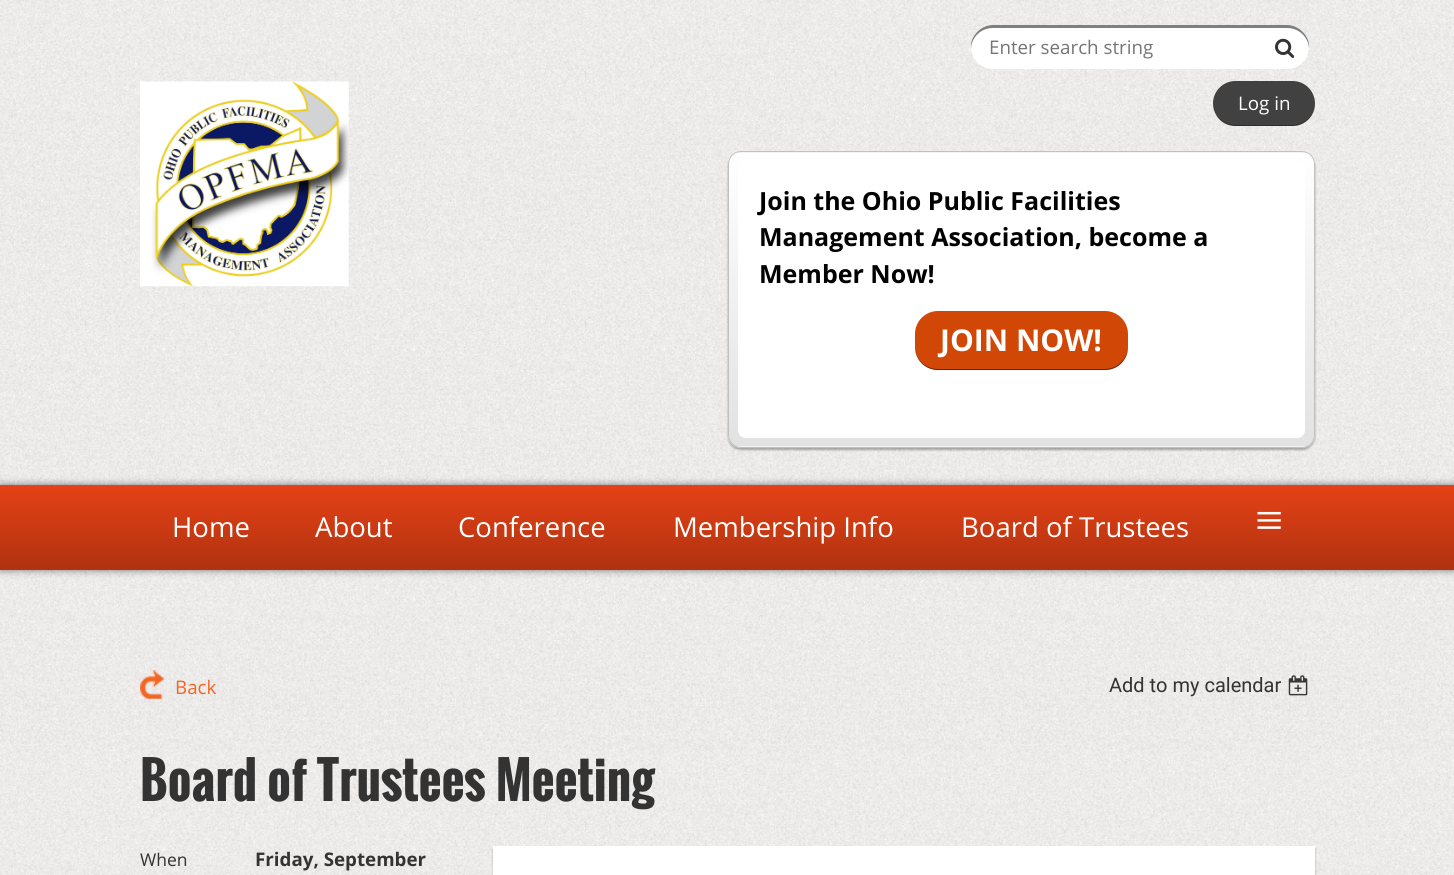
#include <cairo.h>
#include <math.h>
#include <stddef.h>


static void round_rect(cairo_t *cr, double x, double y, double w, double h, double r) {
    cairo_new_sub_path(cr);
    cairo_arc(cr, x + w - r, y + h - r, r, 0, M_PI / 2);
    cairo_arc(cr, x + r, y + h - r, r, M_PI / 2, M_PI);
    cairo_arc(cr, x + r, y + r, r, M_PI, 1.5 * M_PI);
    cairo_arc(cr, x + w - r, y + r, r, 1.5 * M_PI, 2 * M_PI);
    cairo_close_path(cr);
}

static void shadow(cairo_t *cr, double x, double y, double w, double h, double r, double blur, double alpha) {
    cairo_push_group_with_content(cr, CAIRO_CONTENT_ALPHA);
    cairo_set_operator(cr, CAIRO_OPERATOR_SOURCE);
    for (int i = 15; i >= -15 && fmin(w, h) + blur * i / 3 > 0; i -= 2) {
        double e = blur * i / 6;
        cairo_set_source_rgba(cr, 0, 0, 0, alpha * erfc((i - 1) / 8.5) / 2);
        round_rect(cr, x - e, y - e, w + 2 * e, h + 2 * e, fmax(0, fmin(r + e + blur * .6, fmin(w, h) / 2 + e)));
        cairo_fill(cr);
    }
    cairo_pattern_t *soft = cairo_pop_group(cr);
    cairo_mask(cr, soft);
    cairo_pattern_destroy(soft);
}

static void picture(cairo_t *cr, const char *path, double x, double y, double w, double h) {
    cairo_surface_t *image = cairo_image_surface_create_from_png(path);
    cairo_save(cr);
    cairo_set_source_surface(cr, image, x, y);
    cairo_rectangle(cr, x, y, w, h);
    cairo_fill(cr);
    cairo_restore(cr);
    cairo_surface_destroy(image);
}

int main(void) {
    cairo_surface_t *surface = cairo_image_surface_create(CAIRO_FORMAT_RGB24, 1454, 875);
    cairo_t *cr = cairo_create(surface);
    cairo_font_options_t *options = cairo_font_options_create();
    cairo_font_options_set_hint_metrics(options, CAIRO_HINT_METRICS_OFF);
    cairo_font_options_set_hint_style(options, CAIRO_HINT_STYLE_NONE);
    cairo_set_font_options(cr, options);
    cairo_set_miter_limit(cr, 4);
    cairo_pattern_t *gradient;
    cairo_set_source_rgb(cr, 1, 1, 1);
    cairo_paint(cr);
    picture(cr, "img1.png", 0, 0, 1454, 875);
    cairo_set_source_rgb(cr, 1, 1, 1);
    round_rect(cr, 971, 25, 338, 44, 22);
    cairo_fill(cr);
    cairo_set_source_rgba(cr, 0, 0, 0, 0.5);
    cairo_new_path(cr);
    cairo_move_to(cr, 993, 28);
    cairo_line_to(cr, 1287, 28);
    cairo_curve_to(cr, 1299, 28, 1308, 37, 1309, 48);
    cairo_curve_to(cr, 1310, 36, 1299, 25, 1287, 25);
    cairo_line_to(cr, 993, 25);
    cairo_curve_to(cr, 981, 25, 970, 36, 971, 48);
    cairo_curve_to(cr, 972, 37, 981, 28, 993, 28);
    cairo_close_path(cr);
    cairo_fill(cr);
    cairo_select_font_face(cr, "Open Sans", CAIRO_FONT_SLANT_NORMAL, CAIRO_FONT_WEIGHT_NORMAL);
    cairo_set_font_size(cr, 18.75);
    cairo_set_source_rgb(cr, 0.459, 0.459, 0.459);
    cairo_move_to(cr, 989, 54);
    cairo_show_text(cr, "Enter search string");
    picture(cr, "img2.png", 1275, 38, 20, 20);
    picture(cr, "img3.png", 140, 81, 209, 206);
    cairo_set_source_rgb(cr, 0.255, 0.255, 0.255);
    round_rect(cr, 1213, 81, 102, 45, 22.5);
    cairo_fill(cr);
    cairo_set_source_rgba(cr, 0, 0, 0, 0.3);
    cairo_new_path(cr);
    cairo_move_to(cr, 1216, 115);
    cairo_curve_to(cr, 1220, 122, 1227, 126, 1236, 126);
    cairo_line_to(cr, 1292, 126);
    cairo_curve_to(cr, 1305, 126, 1315, 116, 1315, 104);
    cairo_line_to(cr, 1315, 103);
    cairo_curve_to(cr, 1315, 115, 1305, 125, 1292, 125);
    cairo_line_to(cr, 1235, 125);
    cairo_curve_to(cr, 1228, 125, 1221, 121, 1216, 115);
    cairo_close_path(cr);
    cairo_fill(cr);
    cairo_set_source_rgb(cr, 1, 1, 1);
    cairo_move_to(cr, 1238, 110);
    cairo_show_text(cr, "Log in");
    cairo_set_source_rgb(cr, 0, 0, 0);
    shadow(cr, 728, 154, 587, 296, 13, 1, 0.3);
    cairo_set_source_rgb(cr, 0.953, 0.953, 0.953);
    round_rect(cr, 728, 151, 587, 297, 13);
    cairo_fill(cr);
    cairo_save(cr);
    round_rect(cr, 728, 151, 587, 297, 13);
    cairo_clip(cr);
    gradient = cairo_pattern_create_linear(1021, 152, 1021, 446);
    cairo_pattern_add_color_stop_rgba(gradient, 0, 1, 1, 1, 1);
    cairo_pattern_add_color_stop_rgba(gradient, 1, 0.886, 0.886, 0.886, 1);
    cairo_set_source(cr, gradient);
    cairo_pattern_destroy(gradient);
    cairo_rectangle(cr, 728, 153, 587, 293);
    cairo_fill(cr);
    cairo_restore(cr);
    round_rect(cr, 728.5, 151.5, 586, 296, 12.5);
    cairo_set_source_rgb(cr, 0.753, 0.753, 0.753);
    cairo_set_line_width(cr, 1);
    cairo_stroke(cr);
    cairo_set_source_rgb(cr, 1, 1, 1);
    round_rect(cr, 738, 161, 567, 277, 8);
    cairo_fill(cr);
    cairo_select_font_face(cr, "Open Sans", CAIRO_FONT_SLANT_NORMAL, CAIRO_FONT_WEIGHT_BOLD);
    cairo_set_font_size(cr, 25);
    cairo_set_source_rgb(cr, 0, 0, 0);
    cairo_move_to(cr, 759, 210);
    cairo_show_text(cr, "Join the Ohio Public Facilities");
    cairo_move_to(cr, 759, 246);
    cairo_show_text(cr, "Management Association, become a");
    cairo_move_to(cr, 759, 283);
    cairo_show_text(cr, "Member Now!");
    cairo_set_source_rgb(cr, 0.82, 0.278, 0.024);
    round_rect(cr, 915, 311, 213, 59, 23);
    cairo_fill(cr);
    cairo_set_source_rgba(cr, 0, 0, 0, 0.5);
    cairo_new_path(cr);
    cairo_move_to(cr, 915, 346);
    cairo_line_to(cr, 915, 347);
    cairo_curve_to(cr, 915, 360, 925, 370, 938, 370);
    cairo_line_to(cr, 1105, 370);
    cairo_curve_to(cr, 1118, 370, 1128, 360, 1128, 347);
    cairo_line_to(cr, 1128, 346);
    cairo_curve_to(cr, 1128, 359, 1117, 369, 1105, 369);
    cairo_line_to(cr, 938, 369);
    cairo_curve_to(cr, 925, 369, 915, 359, 915, 346);
    cairo_close_path(cr);
    cairo_fill(cr);
    cairo_set_font_size(cr, 30);
    cairo_set_source_rgb(cr, 1, 1, 1);
    cairo_move_to(cr, 940, 351);
    cairo_show_text(cr, "JOIN NOW!");
    cairo_set_source_rgb(cr, 0, 0, 0);
    shadow(cr, 0, 485, 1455, 85, 0, 4, 0.5);
    gradient = cairo_pattern_create_linear(728, 485, 728, 570);
    cairo_pattern_add_color_stop_rgba(gradient, 0, 0.898, 0.259, 0.086, 1);
    cairo_pattern_add_color_stop_rgba(gradient, 1, 0.69, 0.196, 0.063, 1);
    cairo_set_source(cr, gradient);
    cairo_pattern_destroy(gradient);
    cairo_rectangle(cr, 0, 485, 1454, 85);
    cairo_fill(cr);
    cairo_select_font_face(cr, "Open Sans", CAIRO_FONT_SLANT_NORMAL, CAIRO_FONT_WEIGHT_NORMAL);
    cairo_set_font_size(cr, 27.5);
    cairo_set_source_rgb(cr, 1, 1, 1);
    cairo_move_to(cr, 172, 537);
    cairo_show_text(cr, "Home");
    cairo_move_to(cr, 315, 537);
    cairo_show_text(cr, "About");
    cairo_move_to(cr, 458, 537);
    cairo_show_text(cr, "Conference");
    cairo_move_to(cr, 673, 537);
    cairo_show_text(cr, "Membership Info");
    cairo_move_to(cr, 961, 537);
    cairo_show_text(cr, "Board of Trustees");
    cairo_select_font_face(cr, "Liberation Serif", CAIRO_FONT_SLANT_NORMAL, CAIRO_FONT_WEIGHT_NORMAL);
    cairo_set_font_size(cr, 50);
    cairo_move_to(cr, 1255, 537);
    cairo_show_text(cr, "≡");
    picture(cr, "img4.png", 140, 670, 24, 29);
    cairo_select_font_face(cr, "Open Sans", CAIRO_FONT_SLANT_NORMAL, CAIRO_FONT_WEIGHT_NORMAL);
    cairo_set_font_size(cr, 18.75);
    cairo_set_source_rgb(cr, 0.949, 0.396, 0.133);
    cairo_move_to(cr, 175, 694);
    cairo_show_text(cr, "Back");
    cairo_select_font_face(cr, "Roboto", CAIRO_FONT_SLANT_NORMAL, CAIRO_FONT_WEIGHT_NORMAL);
    cairo_set_font_size(cr, 20);
    cairo_set_source_rgb(cr, 0.2, 0.2, 0.2);
    cairo_move_to(cr, 1109, 692);
    cairo_show_text(cr, "Add to my calendar");
    picture(cr, "img5.png", 1288, 675, 20, 21);
    cairo_select_font_face(cr, "Oswald", CAIRO_FONT_SLANT_NORMAL, CAIRO_FONT_WEIGHT_BOLD);
    cairo_set_font_size(cr, 50);
    cairo_move_to(cr, 140, 801);
    cairo_show_text(cr, "Board of Trustees Meeting");
    cairo_select_font_face(cr, "Open Sans", CAIRO_FONT_SLANT_NORMAL, CAIRO_FONT_WEIGHT_NORMAL);
    cairo_set_font_size(cr, 17.5);
    cairo_move_to(cr, 140, 866);
    cairo_show_text(cr, "When");
    cairo_select_font_face(cr, "Open Sans", CAIRO_FONT_SLANT_NORMAL, CAIRO_FONT_WEIGHT_BOLD);
    cairo_set_font_size(cr, 18.75);
    cairo_move_to(cr, 255, 866);
    cairo_show_text(cr, "Friday, September");
    cairo_set_source_rgb(cr, 0, 0, 0);
    shadow(cr, 493, 849, 822, 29, 0, 1, 0.3);
    cairo_set_source_rgb(cr, 1, 1, 1);
    cairo_rectangle(cr, 493, 846, 822, 29);
    cairo_fill(cr);
    cairo_surface_write_to_png(surface, "page.png");
    cairo_font_options_destroy(options);
    cairo_destroy(cr);
    cairo_surface_destroy(surface);
    return 0;
}
